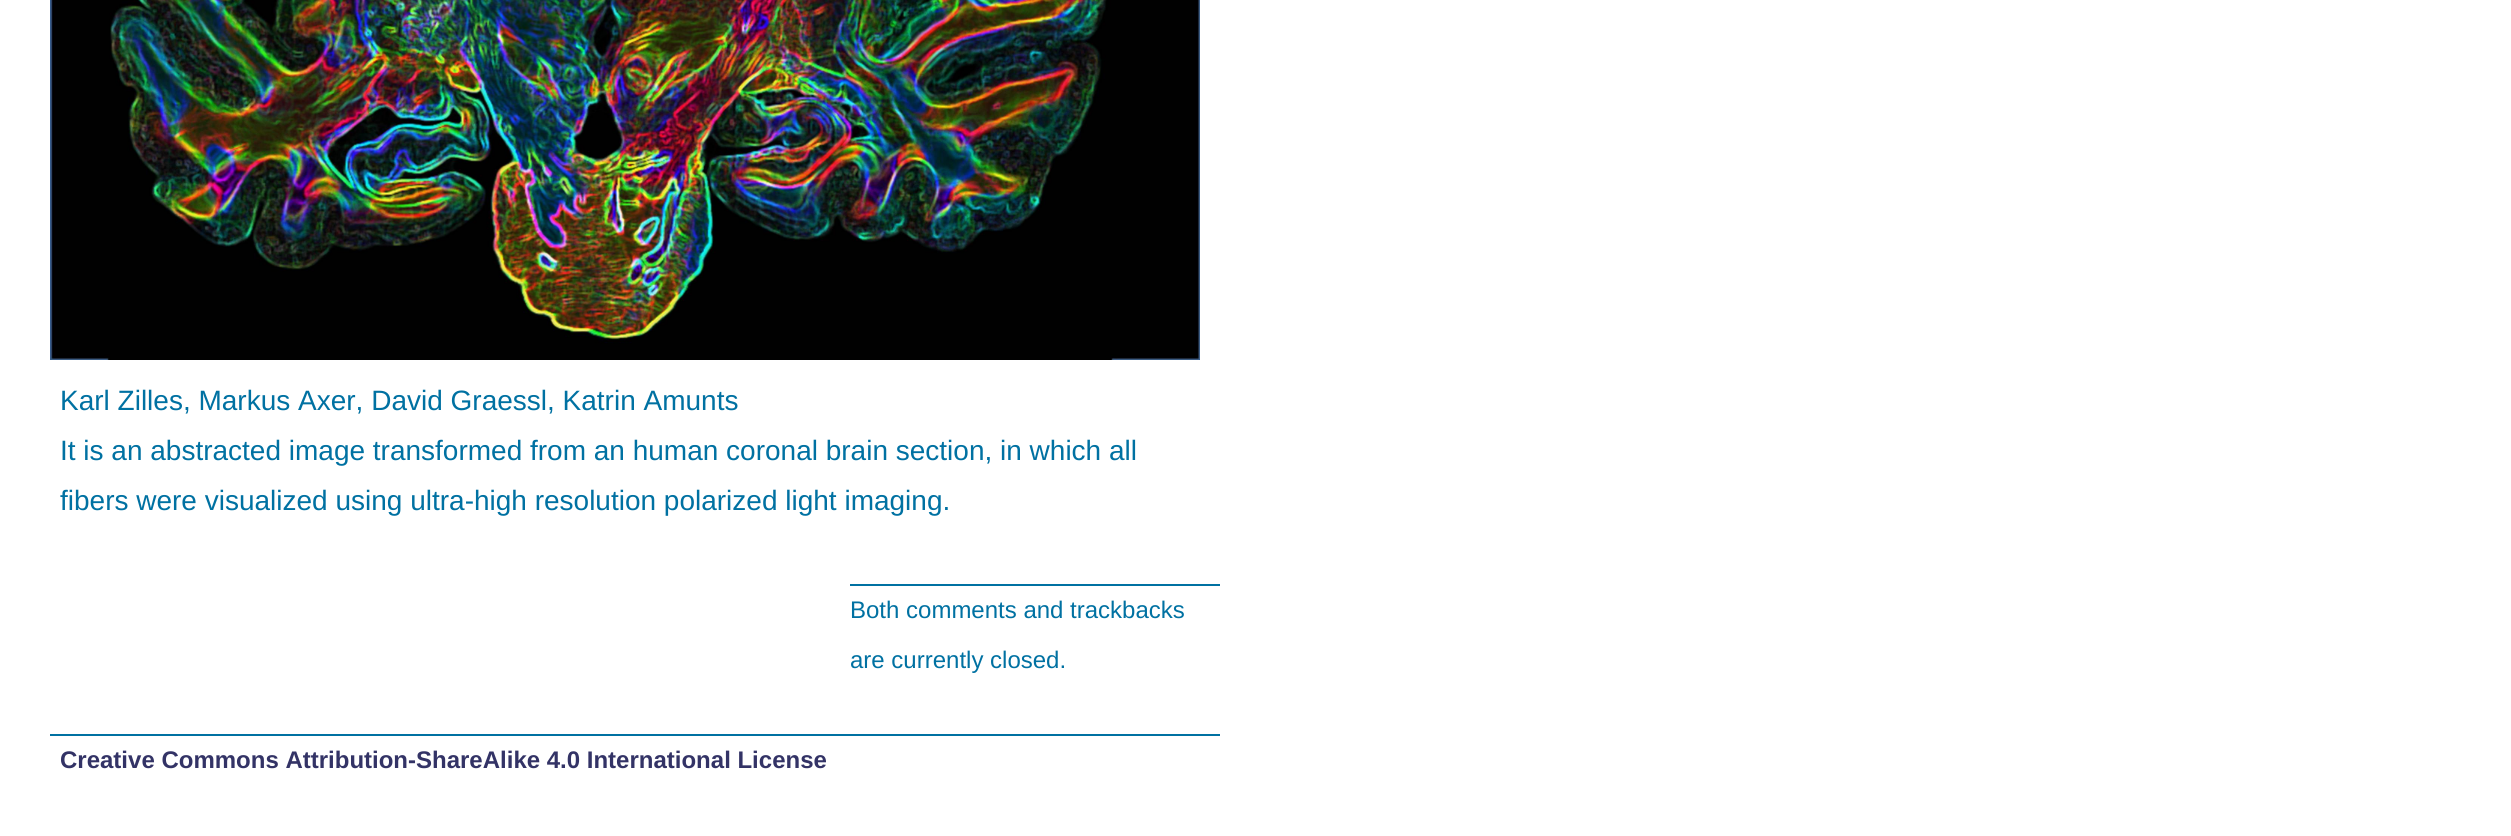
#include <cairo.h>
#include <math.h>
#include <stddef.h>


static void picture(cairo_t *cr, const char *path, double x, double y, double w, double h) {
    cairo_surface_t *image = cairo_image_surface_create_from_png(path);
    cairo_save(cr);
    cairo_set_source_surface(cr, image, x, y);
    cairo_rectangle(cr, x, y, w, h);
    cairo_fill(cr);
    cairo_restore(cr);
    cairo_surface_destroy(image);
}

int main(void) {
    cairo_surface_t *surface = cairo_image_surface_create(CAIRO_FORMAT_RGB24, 2511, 836);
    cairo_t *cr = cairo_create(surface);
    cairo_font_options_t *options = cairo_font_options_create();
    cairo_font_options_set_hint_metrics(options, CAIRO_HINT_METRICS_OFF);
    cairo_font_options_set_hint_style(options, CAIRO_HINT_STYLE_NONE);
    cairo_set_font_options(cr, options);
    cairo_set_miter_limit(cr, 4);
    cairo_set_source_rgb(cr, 1, 1, 1);
    cairo_paint(cr);
    picture(cr, "img1.png", 50, 0, 1150, 360);
    cairo_select_font_face(cr, "Liberation Sans", CAIRO_FONT_SLANT_NORMAL, CAIRO_FONT_WEIGHT_NORMAL);
    cairo_set_font_size(cr, 28);
    cairo_set_source_rgb(cr, 0, 0.443, 0.635);
    cairo_move_to(cr, 60, 410);
    cairo_show_text(cr, "Karl Zilles, Markus Axer, David Graessl, Katrin Amunts");
    cairo_move_to(cr, 60, 460);
    cairo_show_text(cr, "It is an abstracted image transformed from an human coronal brain section, in which all");
    cairo_move_to(cr, 60, 510);
    cairo_show_text(cr, "fibers were visualized using ultra-high resolution polarized light imaging.");
    cairo_rectangle(cr, 850, 584, 370, 2);
    cairo_fill(cr);
    cairo_set_font_size(cr, 24);
    cairo_move_to(cr, 850, 618);
    cairo_show_text(cr, "Both comments and trackbacks");
    cairo_move_to(cr, 850, 668);
    cairo_show_text(cr, "are currently closed.");
    cairo_rectangle(cr, 50, 734, 1170, 2);
    cairo_fill(cr);
    cairo_select_font_face(cr, "Liberation Sans", CAIRO_FONT_SLANT_NORMAL, CAIRO_FONT_WEIGHT_BOLD);
    cairo_set_source_rgb(cr, 0.2, 0.2, 0.4);
    cairo_move_to(cr, 60, 768);
    cairo_show_text(cr, "Creative Commons Attribution-ShareAlike 4.0 International License");
    cairo_surface_write_to_png(surface, "page.png");
    cairo_font_options_destroy(options);
    cairo_destroy(cr);
    cairo_surface_destroy(surface);
    return 0;
}
